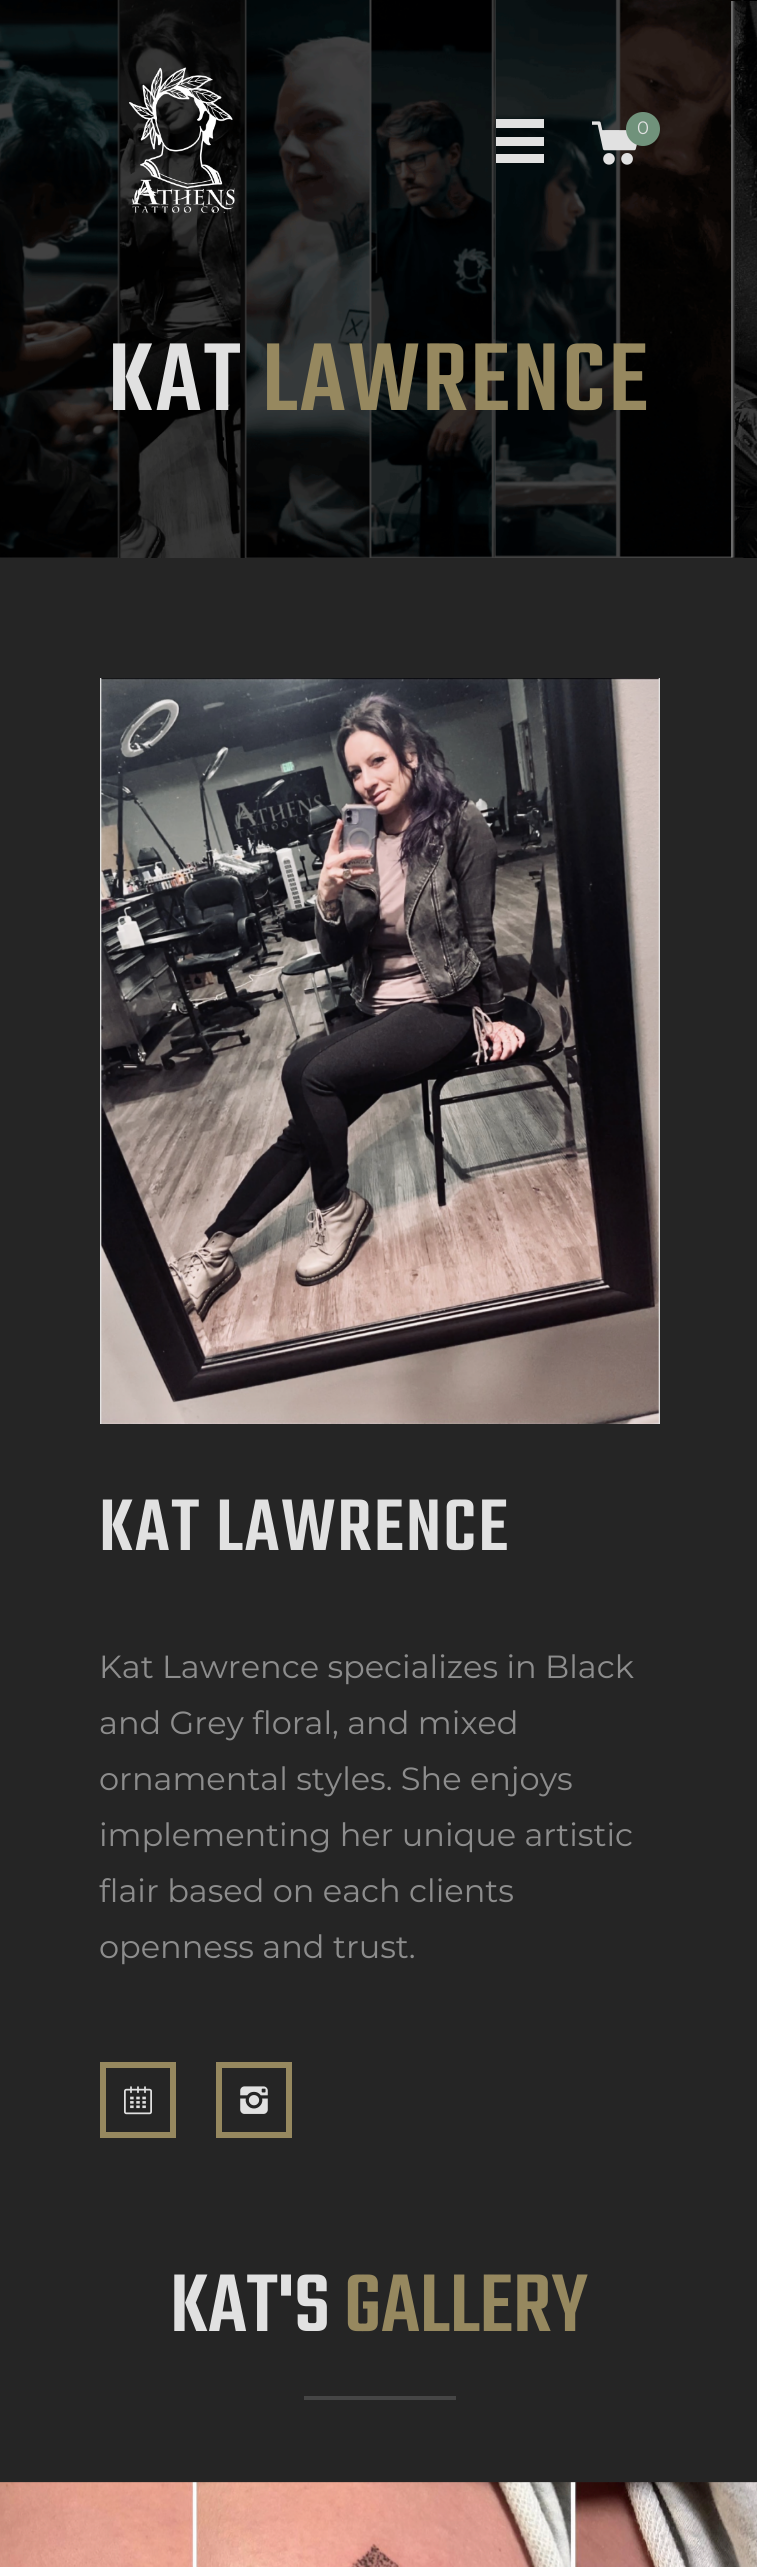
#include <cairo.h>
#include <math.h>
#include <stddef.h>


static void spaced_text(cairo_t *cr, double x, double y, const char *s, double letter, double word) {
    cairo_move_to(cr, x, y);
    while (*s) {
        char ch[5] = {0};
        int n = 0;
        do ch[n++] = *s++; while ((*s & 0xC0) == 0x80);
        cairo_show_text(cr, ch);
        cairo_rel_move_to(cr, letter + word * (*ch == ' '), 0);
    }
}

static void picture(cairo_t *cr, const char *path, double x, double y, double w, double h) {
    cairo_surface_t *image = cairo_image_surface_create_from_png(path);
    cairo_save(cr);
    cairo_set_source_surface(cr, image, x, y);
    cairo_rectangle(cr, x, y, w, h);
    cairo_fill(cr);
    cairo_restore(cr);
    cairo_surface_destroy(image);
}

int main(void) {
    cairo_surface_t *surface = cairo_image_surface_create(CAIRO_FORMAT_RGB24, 757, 2567);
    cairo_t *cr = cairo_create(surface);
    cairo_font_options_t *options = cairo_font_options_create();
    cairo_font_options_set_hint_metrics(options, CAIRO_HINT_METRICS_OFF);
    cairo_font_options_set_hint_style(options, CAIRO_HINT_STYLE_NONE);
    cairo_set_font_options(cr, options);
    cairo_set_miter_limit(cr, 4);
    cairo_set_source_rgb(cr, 0.145, 0.145, 0.145);
    cairo_paint(cr);
    picture(cr, "img1.png", 0, 0, 757, 558);
    picture(cr, "img2.png", 128, 67, 107, 146);
    cairo_set_source_rgb(cr, 0.882, 0.882, 0.882);
    cairo_new_path(cr);
    cairo_move_to(cr, 544, 128);
    cairo_line_to(cr, 496, 128);
    cairo_line_to(cr, 496, 119);
    cairo_line_to(cr, 544, 119);
    cairo_close_path(cr);
    cairo_move_to(cr, 544, 137);
    cairo_line_to(cr, 496, 137);
    cairo_line_to(cr, 496, 146);
    cairo_line_to(cr, 544, 146);
    cairo_close_path(cr);
    cairo_move_to(cr, 544, 154);
    cairo_line_to(cr, 496, 154);
    cairo_line_to(cr, 496, 163);
    cairo_line_to(cr, 544, 163);
    cairo_close_path(cr);
    cairo_fill(cr);
    picture(cr, "img3.png", 592, 121, 45, 44);
    cairo_set_source_rgb(cr, 0.439, 0.573, 0.482);
    cairo_arc(cr, 643, 129, 17, 0, 2 * M_PI);
    cairo_fill(cr);
    cairo_select_font_face(cr, "Montserrat", CAIRO_FONT_SLANT_NORMAL, CAIRO_FONT_WEIGHT_NORMAL);
    cairo_set_font_size(cr, 18);
    cairo_set_source_rgb(cr, 0.882, 0.882, 0.882);
    cairo_move_to(cr, 637, 134);
    cairo_show_text(cr, "0");
    cairo_select_font_face(cr, "Teko Medium", CAIRO_FONT_SLANT_NORMAL, CAIRO_FONT_WEIGHT_NORMAL);
    cairo_set_font_size(cr, 105.5);
    spaced_text(cr, 108, 410, "KAT", 2.75, 0);
    cairo_set_source_rgb(cr, 0.588, 0.533, 0.373);
    spaced_text(cr, 262, 410, "LAWRENCE", 2.75, 0);
    picture(cr, "img4.png", 100, 678, 560, 746);
    cairo_set_font_size(cr, 80);
    cairo_set_source_rgb(cr, 0.882, 0.882, 0.882);
    spaced_text(cr, 99, 1550, "KAT LAWRENCE", 2, 0);
    cairo_select_font_face(cr, "Montserrat", CAIRO_FONT_SLANT_NORMAL, CAIRO_FONT_WEIGHT_NORMAL);
    cairo_set_font_size(cr, 32);
    cairo_set_source_rgb(cr, 0.553, 0.553, 0.553);
    cairo_move_to(cr, 99, 1678);
    cairo_show_text(cr, "Kat Lawrence specializes in Black");
    cairo_move_to(cr, 99, 1734);
    cairo_show_text(cr, "and Grey floral, and mixed");
    cairo_move_to(cr, 99, 1790);
    cairo_show_text(cr, "ornamental styles. She enjoys");
    cairo_move_to(cr, 99, 1846);
    cairo_show_text(cr, "implementing her unique artistic");
    cairo_move_to(cr, 99, 1902);
    cairo_show_text(cr, "flair based on each clients");
    cairo_move_to(cr, 99, 1958);
    cairo_show_text(cr, "openness and trust.");
    cairo_rectangle(cr, 103, 2065, 70, 70);
    cairo_set_source_rgb(cr, 0.588, 0.533, 0.373);
    cairo_set_line_width(cr, 6);
    cairo_stroke(cr);
    picture(cr, "img5.png", 124, 2086, 28, 29);
    cairo_rectangle(cr, 219, 2065, 70, 70);
    cairo_stroke(cr);
    picture(cr, "img6.png", 240, 2086, 28, 28);
    cairo_select_font_face(cr, "Teko Medium", CAIRO_FONT_SLANT_NORMAL, CAIRO_FONT_WEIGHT_NORMAL);
    cairo_set_font_size(cr, 89.5);
    cairo_set_source_rgb(cr, 0.882, 0.882, 0.882);
    cairo_move_to(cr, 170, 2331);
    cairo_show_text(cr, "KAT'S");
    cairo_set_source_rgb(cr, 0.588, 0.533, 0.373);
    cairo_move_to(cr, 344, 2331);
    cairo_show_text(cr, "GALLERY");
    cairo_set_source_rgb(cr, 0.271, 0.271, 0.271);
    cairo_rectangle(cr, 304, 2396, 152, 4);
    cairo_fill(cr);
    picture(cr, "img7.png", 0, 2482, 757, 85);
    cairo_surface_write_to_png(surface, "page.png");
    cairo_font_options_destroy(options);
    cairo_destroy(cr);
    cairo_surface_destroy(surface);
    return 0;
}
